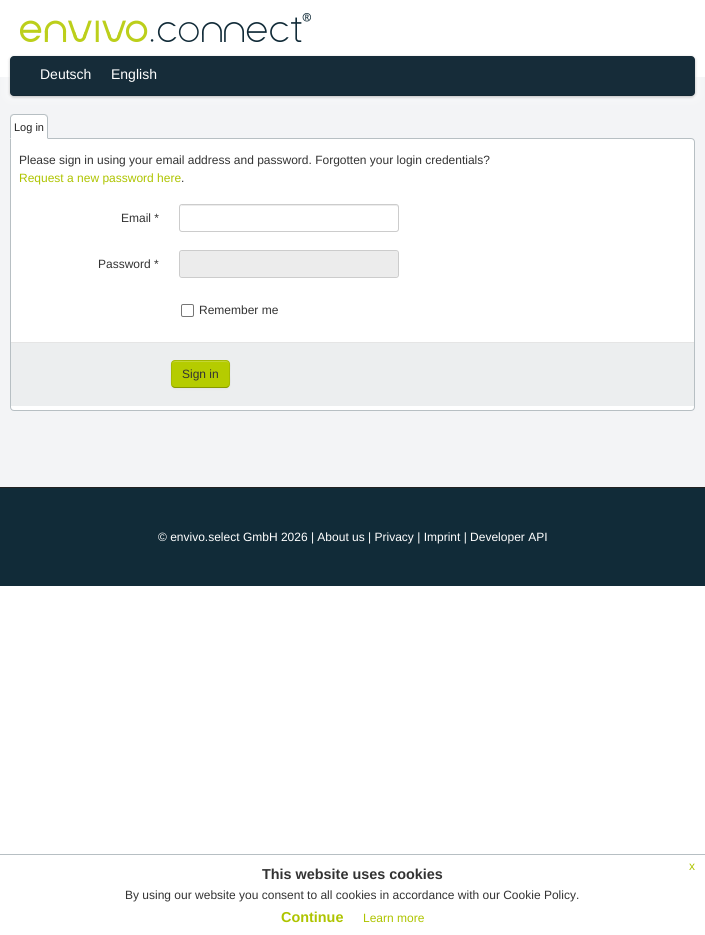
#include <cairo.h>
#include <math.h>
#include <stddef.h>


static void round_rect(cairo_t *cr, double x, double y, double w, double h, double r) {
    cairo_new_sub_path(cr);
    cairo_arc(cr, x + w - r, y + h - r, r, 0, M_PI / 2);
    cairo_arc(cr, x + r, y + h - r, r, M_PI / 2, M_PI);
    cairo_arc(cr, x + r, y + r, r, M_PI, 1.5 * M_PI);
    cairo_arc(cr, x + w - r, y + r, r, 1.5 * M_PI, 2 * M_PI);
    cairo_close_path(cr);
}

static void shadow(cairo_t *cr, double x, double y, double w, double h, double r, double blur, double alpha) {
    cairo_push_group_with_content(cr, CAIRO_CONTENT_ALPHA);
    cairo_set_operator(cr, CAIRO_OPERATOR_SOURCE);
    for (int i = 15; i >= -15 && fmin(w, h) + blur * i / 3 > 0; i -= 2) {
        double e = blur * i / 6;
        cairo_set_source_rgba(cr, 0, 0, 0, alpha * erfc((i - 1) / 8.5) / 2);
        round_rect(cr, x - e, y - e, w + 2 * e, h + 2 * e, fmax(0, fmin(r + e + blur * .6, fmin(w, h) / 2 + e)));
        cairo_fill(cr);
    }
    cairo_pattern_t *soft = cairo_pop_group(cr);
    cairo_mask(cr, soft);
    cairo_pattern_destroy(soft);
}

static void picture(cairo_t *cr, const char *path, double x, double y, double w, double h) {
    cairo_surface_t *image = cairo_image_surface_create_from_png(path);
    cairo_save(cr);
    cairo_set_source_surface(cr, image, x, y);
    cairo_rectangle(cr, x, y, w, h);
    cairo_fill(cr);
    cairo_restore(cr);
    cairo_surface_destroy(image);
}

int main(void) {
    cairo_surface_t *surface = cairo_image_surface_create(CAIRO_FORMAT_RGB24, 705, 935);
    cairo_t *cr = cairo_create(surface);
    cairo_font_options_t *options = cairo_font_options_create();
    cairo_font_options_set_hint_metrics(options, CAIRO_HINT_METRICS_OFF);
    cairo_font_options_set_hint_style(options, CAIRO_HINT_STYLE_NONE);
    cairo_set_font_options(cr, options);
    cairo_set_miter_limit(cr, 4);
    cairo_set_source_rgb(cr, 1, 1, 1);
    cairo_paint(cr);
    cairo_set_source_rgb(cr, 0.953, 0.957, 0.961);
    cairo_rectangle(cr, 0, 77, 705, 410);
    cairo_fill(cr);
    cairo_set_source_rgb(cr, 0.133, 0.133, 0.133);
    cairo_rectangle(cr, 0, 487, 705, 1);
    cairo_fill(cr);
    picture(cr, "img1.png", 20, 13, 291, 29);
    cairo_set_source_rgb(cr, 1, 1, 1);
    shadow(cr, 10, 56, 685, 40, 0, 5, 1);
    cairo_set_source_rgb(cr, 0, 0, 0);
    shadow(cr, 10, 57, 685, 40, 4, 1.5, 0.25);
    cairo_set_source_rgb(cr, 0.086, 0.173, 0.224);
    round_rect(cr, 10, 56, 685, 40, 4);
    cairo_fill(cr);
    cairo_set_source_rgba(cr, 0, 0, 0, 0.1);
    cairo_new_path(cr);
    cairo_move_to(cr, 10, 91);
    cairo_curve_to(cr, 10, 94, 11, 96, 14, 96);
    cairo_line_to(cr, 691, 96);
    cairo_line_to(cr, 694, 95);
    cairo_line_to(cr, 695, 94);
    cairo_line_to(cr, 695, 91);
    cairo_curve_to(cr, 695, 93, 693, 95, 691, 95);
    cairo_line_to(cr, 14, 95);
    cairo_curve_to(cr, 12, 95, 10, 93, 10, 91);
    cairo_close_path(cr);
    cairo_fill(cr);
    cairo_select_font_face(cr, "Liberation Sans", CAIRO_FONT_SLANT_NORMAL, CAIRO_FONT_WEIGHT_NORMAL);
    cairo_set_font_size(cr, 14);
    cairo_set_source_rgb(cr, 1, 1, 1);
    cairo_move_to(cr, 40, 79);
    cairo_show_text(cr, "Deutsch");
    cairo_move_to(cr, 111, 79);
    cairo_show_text(cr, "English");
    cairo_new_path(cr);
    cairo_move_to(cr, 10.5, 138.5);
    cairo_line_to(cr, 691, 138.5);
    cairo_curve_to(cr, 693, 138.5, 694.5, 140, 694.5, 142);
    cairo_line_to(cr, 694.5, 407);
    cairo_curve_to(cr, 694.5, 409, 693, 410.5, 691, 410.5);
    cairo_line_to(cr, 14, 410.5);
    cairo_curve_to(cr, 12, 410.5, 10.5, 409, 10.5, 407);
    cairo_close_path(cr);
    cairo_fill_preserve(cr);
    cairo_set_source_rgb(cr, 0.718, 0.749, 0.765);
    cairo_set_line_width(cr, 1);
    cairo_stroke(cr);
    cairo_set_source_rgb(cr, 1, 1, 1);
    cairo_new_path(cr);
    cairo_move_to(cr, 14, 114);
    cairo_line_to(cr, 44, 114);
    cairo_curve_to(cr, 46, 114, 48, 116, 48, 118);
    cairo_line_to(cr, 48, 139);
    cairo_line_to(cr, 10, 139);
    cairo_line_to(cr, 10, 118);
    cairo_curve_to(cr, 10, 116, 12, 114, 14, 114);
    cairo_close_path(cr);
    cairo_fill(cr);
    cairo_set_source_rgb(cr, 0.718, 0.749, 0.765);
    cairo_new_path(cr);
    cairo_move_to(cr, 14, 114);
    cairo_curve_to(cr, 13, 114, 12, 114.5, 11, 115);
    cairo_line_to(cr, 12, 116);
    cairo_curve_to(cr, 12.5, 115.5, 13, 115, 14, 115);
    cairo_line_to(cr, 44, 115);
    cairo_curve_to(cr, 45, 115, 45.5, 115.5, 46, 116);
    cairo_line_to(cr, 47, 115);
    cairo_curve_to(cr, 46, 114.5, 45, 114, 44, 114);
    cairo_close_path(cr);
    cairo_fill(cr);
    cairo_new_path(cr);
    cairo_move_to(cr, 48, 139);
    cairo_line_to(cr, 48, 118);
    cairo_curve_to(cr, 48, 117, 47.5, 116, 47, 115);
    cairo_line_to(cr, 46, 116);
    cairo_curve_to(cr, 46.5, 116.5, 47, 117, 47, 118);
    cairo_line_to(cr, 47, 138);
    cairo_close_path(cr);
    cairo_move_to(cr, 10, 139);
    cairo_line_to(cr, 11, 138);
    cairo_line_to(cr, 11, 118);
    cairo_curve_to(cr, 11, 117, 11.5, 116.5, 12, 116);
    cairo_line_to(cr, 11, 115);
    cairo_curve_to(cr, 10.5, 116, 10, 117, 10, 118);
    cairo_close_path(cr);
    cairo_fill(cr);
    cairo_set_font_size(cr, 11);
    cairo_set_source_rgb(cr, 0.133, 0.133, 0.133);
    cairo_move_to(cr, 14, 131);
    cairo_show_text(cr, "Log in");
    cairo_set_font_size(cr, 12);
    cairo_set_source_rgb(cr, 0.2, 0.2, 0.2);
    cairo_move_to(cr, 19, 164);
    cairo_show_text(cr, "Please sign in using your email address and password. Forgotten your login credentials?");
    cairo_set_source_rgb(cr, 0.682, 0.769, 0);
    cairo_move_to(cr, 19, 182);
    cairo_show_text(cr, "Request a new password here");
    cairo_set_source_rgb(cr, 0.2, 0.2, 0.2);
    cairo_move_to(cr, 181, 182);
    cairo_show_text(cr, ".");
    cairo_move_to(cr, 121, 222);
    cairo_show_text(cr, "Email *");
    cairo_set_source_rgb(cr, 0.925, 0.925, 0.925);
    cairo_new_path(cr);
    cairo_move_to(cr, 182, 206);
    cairo_line_to(cr, 396, 206);
    cairo_curve_to(cr, 397, 206, 398, 207, 398, 208);
    cairo_curve_to(cr, 398, 207, 398, 205, 396, 205);
    cairo_line_to(cr, 182, 205);
    cairo_line_to(cr, 181, 206);
    cairo_line_to(cr, 180, 208);
    cairo_curve_to(cr, 180, 207, 181, 206, 182, 206);
    cairo_close_path(cr);
    cairo_fill(cr);
    round_rect(cr, 179.5, 204.5, 219, 27, 2.5);
    cairo_set_source_rgb(cr, 0.8, 0.8, 0.8);
    cairo_stroke(cr);
    cairo_set_source_rgb(cr, 0.2, 0.2, 0.2);
    cairo_move_to(cr, 98, 268);
    cairo_show_text(cr, "Password *");
    cairo_set_source_rgb(cr, 0.925, 0.925, 0.925);
    cairo_new_path(cr);
    cairo_move_to(cr, 182, 251);
    cairo_curve_to(cr, 181, 251, 180, 252, 180, 253);
    cairo_line_to(cr, 180, 275);
    cairo_curve_to(cr, 180, 276, 181, 277, 182, 277);
    cairo_line_to(cr, 396, 277);
    cairo_curve_to(cr, 397, 277, 398, 276, 398, 275);
    cairo_line_to(cr, 398, 253);
    cairo_curve_to(cr, 398, 252, 397, 251, 396, 251);
    cairo_close_path(cr);
    cairo_fill(cr);
    round_rect(cr, 179.5, 250.5, 219, 27, 2.5);
    cairo_set_source_rgb(cr, 0.8, 0.8, 0.8);
    cairo_stroke(cr);
    round_rect(cr, 181.5, 304.5, 12, 12, 1.5);
    cairo_set_source_rgb(cr, 0.463, 0.463, 0.463);
    cairo_stroke(cr);
    cairo_set_source_rgb(cr, 0.2, 0.2, 0.2);
    cairo_move_to(cr, 199, 314);
    cairo_show_text(cr, "Remember me");
    cairo_set_source_rgb(cr, 0.925, 0.933, 0.937);
    cairo_rectangle(cr, 11, 343, 683, 63);
    cairo_fill(cr);
    cairo_set_source_rgb(cr, 0.898, 0.898, 0.898);
    cairo_rectangle(cr, 11, 342, 683, 1);
    cairo_fill(cr);
    cairo_set_source_rgb(cr, 0, 0, 0);
    shadow(cr, 171, 361, 59, 28, 4, 1, 0.05);
    cairo_set_source_rgb(cr, 0.71, 0.8, 0);
    round_rect(cr, 171, 360, 59, 28, 4);
    cairo_fill(cr);
    cairo_set_source_rgb(cr, 0.769, 0.839, 0.2);
    cairo_new_path(cr);
    cairo_move_to(cr, 175, 362);
    cairo_line_to(cr, 226, 362);
    cairo_curve_to(cr, 228, 362, 229, 363, 229, 365);
    cairo_curve_to(cr, 229, 359, 222, 361, 218, 361);
    cairo_line_to(cr, 184, 361);
    cairo_curve_to(cr, 179, 361, 172, 359, 172, 365);
    cairo_curve_to(cr, 172, 363, 173, 362, 175, 362);
    cairo_close_path(cr);
    cairo_fill(cr);
    cairo_new_path(cr);
    cairo_move_to(cr, 228.5, 386.5);
    cairo_line_to(cr, 226.5, 387.5);
    cairo_line_to(cr, 174.5, 387.5);
    cairo_line_to(cr, 172.5, 386.5);
    cairo_set_source_rgba(cr, 0, 0, 0, 0.25);
    cairo_stroke(cr);
    cairo_new_path(cr);
    cairo_move_to(cr, 172.5, 386.5);
    cairo_curve_to(cr, 170.5, 384, 171.5, 376.5, 171.5, 374);
    cairo_curve_to(cr, 171.5, 359.5, 169, 360.5, 183.5, 360.5);
    cairo_line_to(cr, 217.5, 360.5);
    cairo_curve_to(cr, 232, 360.5, 229.5, 359.5, 229.5, 374);
    cairo_curve_to(cr, 229.5, 376.5, 230.5, 384, 228.5, 386.5);
    cairo_set_source_rgba(cr, 0, 0, 0, 0.1);
    cairo_stroke(cr);
    cairo_set_source_rgb(cr, 0.2, 0.2, 0.2);
    cairo_move_to(cr, 182, 378);
    cairo_show_text(cr, "Sign in");
    cairo_set_source_rgb(cr, 0.067, 0.169, 0.22);
    cairo_rectangle(cr, 0, 488, 705, 98);
    cairo_fill(cr);
    cairo_set_source_rgb(cr, 1, 1, 1);
    cairo_move_to(cr, 158, 541);
    cairo_show_text(cr, "© envivo.select GmbH 2026 | About us | Privacy | Imprint | Developer API");
    cairo_set_source_rgb(cr, 0.718, 0.749, 0.765);
    cairo_rectangle(cr, 0, 854, 705, 1);
    cairo_fill(cr);
    cairo_set_source_rgb(cr, 0.682, 0.769, 0);
    cairo_move_to(cr, 689, 870);
    cairo_show_text(cr, "x");
    cairo_select_font_face(cr, "Liberation Sans", CAIRO_FONT_SLANT_NORMAL, CAIRO_FONT_WEIGHT_BOLD);
    cairo_set_font_size(cr, 14.4);
    cairo_set_source_rgb(cr, 0.2, 0.2, 0.2);
    cairo_move_to(cr, 262, 879);
    cairo_show_text(cr, "This website uses cookies");
    cairo_select_font_face(cr, "Liberation Sans", CAIRO_FONT_SLANT_NORMAL, CAIRO_FONT_WEIGHT_NORMAL);
    cairo_set_font_size(cr, 12);
    cairo_move_to(cr, 125, 899);
    cairo_show_text(cr, "By using our website you consent to all cookies in accordance with our Cookie Policy.");
    cairo_select_font_face(cr, "Liberation Sans", CAIRO_FONT_SLANT_NORMAL, CAIRO_FONT_WEIGHT_BOLD);
    cairo_set_font_size(cr, 14.4);
    cairo_set_source_rgb(cr, 0.682, 0.769, 0);
    cairo_move_to(cr, 281, 922);
    cairo_show_text(cr, "Continue");
    cairo_select_font_face(cr, "Liberation Sans", CAIRO_FONT_SLANT_NORMAL, CAIRO_FONT_WEIGHT_NORMAL);
    cairo_set_font_size(cr, 12);
    cairo_move_to(cr, 363, 922);
    cairo_show_text(cr, "Learn more");
    cairo_surface_write_to_png(surface, "page.png");
    cairo_font_options_destroy(options);
    cairo_destroy(cr);
    cairo_surface_destroy(surface);
    return 0;
}
